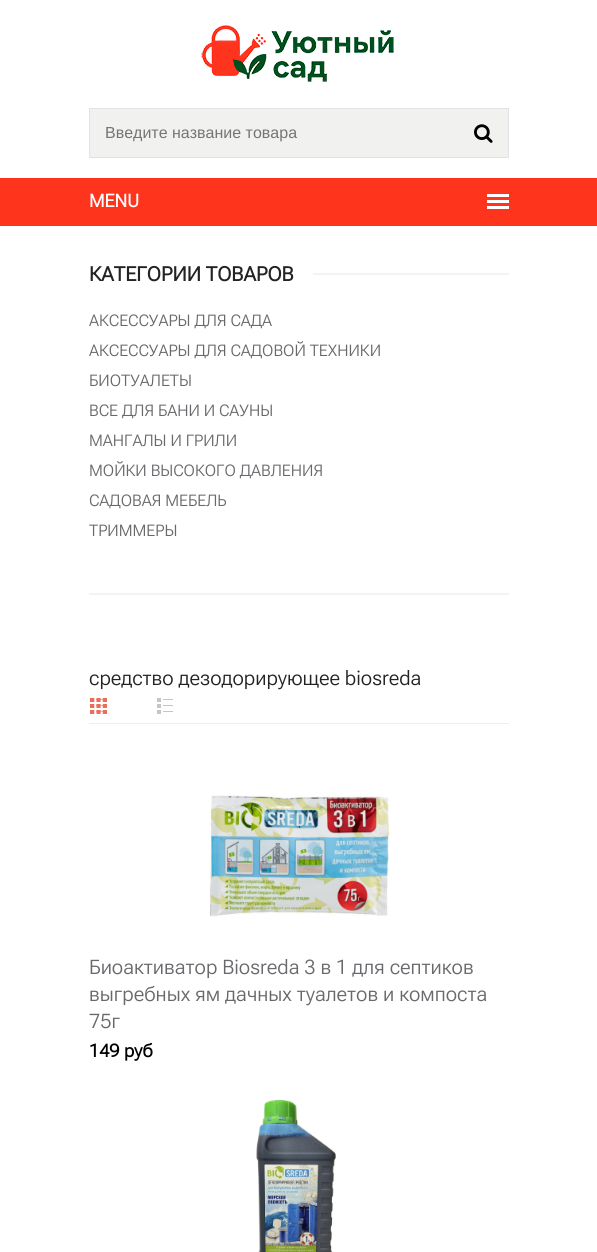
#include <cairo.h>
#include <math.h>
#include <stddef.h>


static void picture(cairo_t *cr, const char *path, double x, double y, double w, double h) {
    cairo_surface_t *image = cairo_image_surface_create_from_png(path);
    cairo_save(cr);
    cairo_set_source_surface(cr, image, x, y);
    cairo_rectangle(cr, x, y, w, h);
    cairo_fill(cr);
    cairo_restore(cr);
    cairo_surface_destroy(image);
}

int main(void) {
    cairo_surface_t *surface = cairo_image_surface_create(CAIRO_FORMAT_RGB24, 597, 1252);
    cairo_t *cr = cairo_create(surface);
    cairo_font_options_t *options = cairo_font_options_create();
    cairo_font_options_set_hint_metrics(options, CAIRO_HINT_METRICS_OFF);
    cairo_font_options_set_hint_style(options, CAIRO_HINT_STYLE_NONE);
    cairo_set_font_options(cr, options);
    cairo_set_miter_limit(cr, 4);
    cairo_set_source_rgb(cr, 1, 1, 1);
    cairo_paint(cr);
    picture(cr, "img1.png", 201, 25, 193, 57);
    cairo_set_source_rgb(cr, 0.945, 0.945, 0.941);
    cairo_rectangle(cr, 89.5, 108.5, 419, 49);
    cairo_fill_preserve(cr);
    cairo_set_source_rgb(cr, 0.886, 0.882, 0.902);
    cairo_set_line_width(cr, 1);
    cairo_stroke(cr);
    cairo_select_font_face(cr, "Liberation Sans", CAIRO_FONT_SLANT_NORMAL, CAIRO_FONT_WEIGHT_NORMAL);
    cairo_set_font_size(cr, 16);
    cairo_set_source_rgb(cr, 0.459, 0.459, 0.459);
    cairo_move_to(cr, 105, 138);
    cairo_show_text(cr, "Введите название товара");
    picture(cr, "img2.png", 474, 124, 19, 19);
    cairo_set_source_rgb(cr, 1, 0.204, 0.114);
    cairo_rectangle(cr, 0, 178, 597, 48);
    cairo_fill(cr);
    cairo_select_font_face(cr, "Roboto Flex", CAIRO_FONT_SLANT_NORMAL, CAIRO_FONT_WEIGHT_BOLD);
    cairo_set_font_size(cr, 18);
    cairo_set_source_rgb(cr, 1, 1, 1);
    cairo_move_to(cr, 89, 207);
    cairo_show_text(cr, "MENU");
    cairo_rectangle(cr, 487, 194, 22, 3);
    cairo_fill(cr);
    cairo_rectangle(cr, 487, 200, 22, 3);
    cairo_fill(cr);
    cairo_rectangle(cr, 487, 206, 22, 3);
    cairo_fill(cr);
    cairo_set_font_size(cr, 20);
    cairo_set_source_rgb(cr, 0.137, 0.137, 0.137);
    cairo_move_to(cr, 89, 281);
    cairo_show_text(cr, "КАТЕГОРИИ ТОВАРОВ");
    cairo_set_source_rgb(cr, 0.953, 0.953, 0.953);
    cairo_rectangle(cr, 313, 273, 196, 2);
    cairo_fill(cr);
    cairo_select_font_face(cr, "Roboto Flex Light", CAIRO_FONT_SLANT_NORMAL, CAIRO_FONT_WEIGHT_NORMAL);
    cairo_set_font_size(cr, 16);
    cairo_set_source_rgb(cr, 0.412, 0.408, 0.424);
    cairo_move_to(cr, 89, 326);
    cairo_show_text(cr, "АКСЕССУАРЫ ДЛЯ САДА");
    cairo_move_to(cr, 89, 356);
    cairo_show_text(cr, "АКСЕССУАРЫ ДЛЯ САДОВОЙ ТЕХНИКИ");
    cairo_move_to(cr, 89, 386);
    cairo_show_text(cr, "БИОТУАЛЕТЫ");
    cairo_move_to(cr, 89, 416);
    cairo_show_text(cr, "ВСЕ ДЛЯ БАНИ И САУНЫ");
    cairo_move_to(cr, 89, 446);
    cairo_show_text(cr, "МАНГАЛЫ И ГРИЛИ");
    cairo_move_to(cr, 89, 476);
    cairo_show_text(cr, "МОЙКИ ВЫСОКОГО ДАВЛЕНИЯ");
    cairo_move_to(cr, 89, 506);
    cairo_show_text(cr, "САДОВАЯ МЕБЕЛЬ");
    cairo_move_to(cr, 89, 536);
    cairo_show_text(cr, "ТРИММЕРЫ");
    cairo_set_source_rgb(cr, 0.953, 0.953, 0.953);
    cairo_rectangle(cr, 89, 593, 420, 2);
    cairo_fill(cr);
    cairo_set_source_rgb(cr, 0.933, 0.933, 0.933);
    cairo_rectangle(cr, 89, 723, 420, 1);
    cairo_fill(cr);
    cairo_set_font_size(cr, 20);
    cairo_set_source_rgb(cr, 0.137, 0.137, 0.137);
    cairo_move_to(cr, 89, 685);
    cairo_show_text(cr, "средство дезодорирующее biosreda");
    picture(cr, "img3.png", 96, 699, 7, 13);
    picture(cr, "img4.png", 90, 698, 17, 16);
    picture(cr, "img5.png", 157, 698, 16, 16);
    picture(cr, "img6.png", 209, 795, 181, 122);
    cairo_set_source_rgb(cr, 0.412, 0.408, 0.424);
    cairo_move_to(cr, 89, 974);
    cairo_show_text(cr, "Биоактиватор Biosreda 3 в 1 для септиков");
    cairo_move_to(cr, 89, 1001);
    cairo_show_text(cr, "выгребных ям дачных туалетов и компоста");
    cairo_move_to(cr, 89, 1028);
    cairo_show_text(cr, "75г");
    cairo_select_font_face(cr, "Roboto Flex", CAIRO_FONT_SLANT_NORMAL, CAIRO_FONT_WEIGHT_BOLD);
    cairo_set_font_size(cr, 18);
    cairo_set_source_rgb(cr, 0, 0, 0);
    cairo_move_to(cr, 89, 1057);
    cairo_show_text(cr, "149 руб");
    picture(cr, "img7.png", 256, 1099, 80, 153);
    cairo_surface_write_to_png(surface, "page.png");
    cairo_font_options_destroy(options);
    cairo_destroy(cr);
    cairo_surface_destroy(surface);
    return 0;
}
